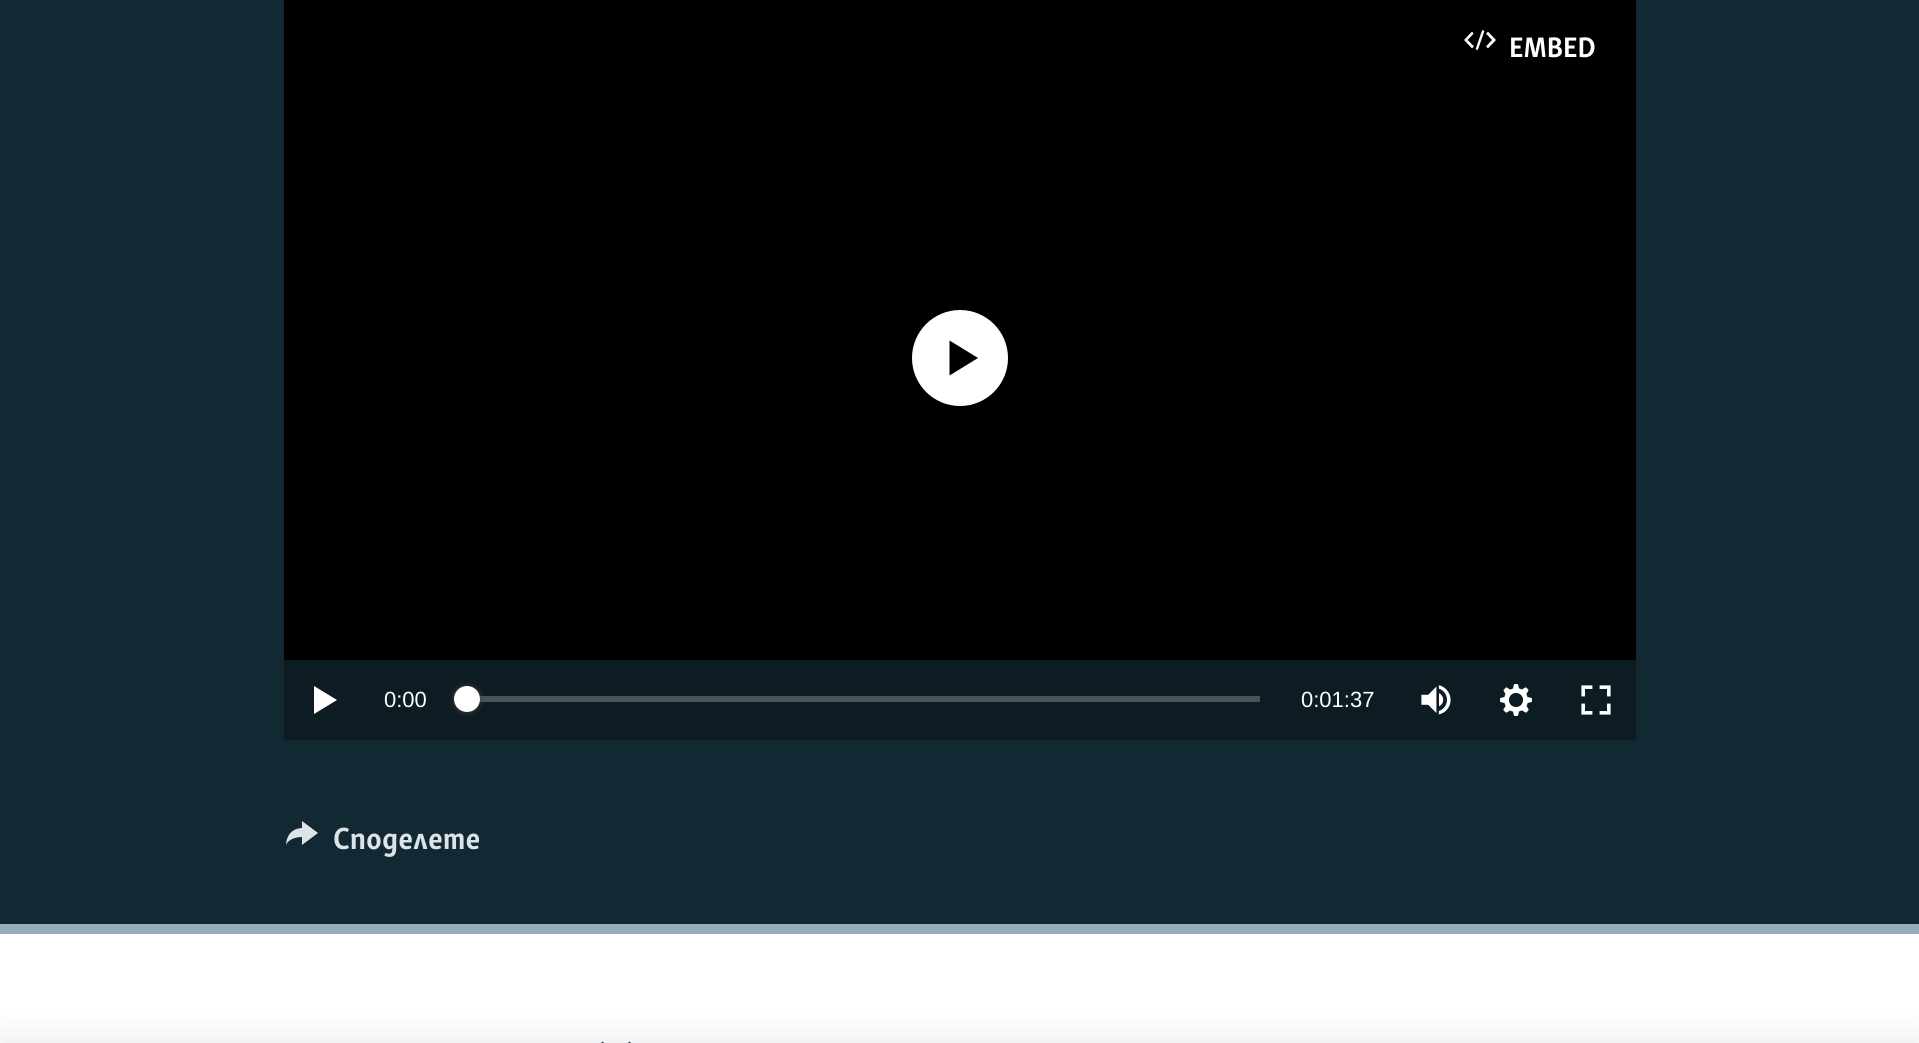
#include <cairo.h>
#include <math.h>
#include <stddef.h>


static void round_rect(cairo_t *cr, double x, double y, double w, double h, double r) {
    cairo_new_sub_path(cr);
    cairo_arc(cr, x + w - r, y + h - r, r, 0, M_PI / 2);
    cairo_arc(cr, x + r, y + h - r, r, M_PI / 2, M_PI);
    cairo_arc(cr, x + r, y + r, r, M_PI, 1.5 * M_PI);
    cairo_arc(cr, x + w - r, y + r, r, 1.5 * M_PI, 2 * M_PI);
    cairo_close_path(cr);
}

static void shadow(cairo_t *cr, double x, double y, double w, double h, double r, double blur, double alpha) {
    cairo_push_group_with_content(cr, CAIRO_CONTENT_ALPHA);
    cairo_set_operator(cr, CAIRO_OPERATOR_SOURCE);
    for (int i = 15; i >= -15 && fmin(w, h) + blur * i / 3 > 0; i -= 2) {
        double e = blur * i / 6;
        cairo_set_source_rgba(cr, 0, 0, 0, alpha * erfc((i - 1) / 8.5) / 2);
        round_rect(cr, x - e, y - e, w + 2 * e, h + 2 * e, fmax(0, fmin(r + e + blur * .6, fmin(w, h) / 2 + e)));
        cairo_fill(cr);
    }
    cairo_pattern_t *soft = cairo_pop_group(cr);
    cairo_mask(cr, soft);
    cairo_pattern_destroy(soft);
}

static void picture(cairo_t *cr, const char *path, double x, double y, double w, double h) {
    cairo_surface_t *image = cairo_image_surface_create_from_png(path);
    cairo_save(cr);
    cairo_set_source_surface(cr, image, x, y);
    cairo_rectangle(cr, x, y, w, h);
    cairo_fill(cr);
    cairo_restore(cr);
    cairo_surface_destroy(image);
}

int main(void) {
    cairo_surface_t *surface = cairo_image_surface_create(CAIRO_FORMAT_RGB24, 1919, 1043);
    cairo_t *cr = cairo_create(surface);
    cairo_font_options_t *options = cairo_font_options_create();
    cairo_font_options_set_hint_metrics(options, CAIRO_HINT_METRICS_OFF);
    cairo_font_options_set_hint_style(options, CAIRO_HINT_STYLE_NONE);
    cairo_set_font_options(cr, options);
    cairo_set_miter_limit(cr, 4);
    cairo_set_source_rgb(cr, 1, 1, 1);
    cairo_paint(cr);
    cairo_set_source_rgb(cr, 0.071, 0.157, 0.196);
    cairo_rectangle(cr, 0, 0, 1919, 924);
    cairo_fill(cr);
    cairo_set_source_rgb(cr, 0.584, 0.678, 0.725);
    cairo_rectangle(cr, 0, 924, 1919, 10);
    cairo_fill(cr);
    cairo_set_source_rgb(cr, 0, 0, 0);
    cairo_rectangle(cr, 284, 0, 1352, 660);
    cairo_fill(cr);
    picture(cr, "img1.png", 1464, 30, 32, 20);
    cairo_select_font_face(cr, "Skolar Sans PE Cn", CAIRO_FONT_SLANT_NORMAL, CAIRO_FONT_WEIGHT_BOLD);
    cairo_set_font_size(cr, 29);
    cairo_set_source_rgb(cr, 1, 1, 1);
    cairo_move_to(cr, 1509, 57);
    cairo_show_text(cr, "EMBED");
    cairo_new_path(cr);
    cairo_arc(cr, 960, 358, 48, 0, 2 * M_PI);
    cairo_fill(cr);
    cairo_set_source_rgb(cr, 0, 0, 0);
    cairo_new_path(cr);
    cairo_move_to(cr, 949.5, 375.5);
    cairo_line_to(cr, 978, 358);
    cairo_line_to(cr, 949.5, 340.5);
    cairo_close_path(cr);
    cairo_fill(cr);
    cairo_set_source_rgb(cr, 0.051, 0.106, 0.133);
    cairo_rectangle(cr, 284, 660, 1352, 80);
    cairo_fill(cr);
    cairo_set_source_rgb(cr, 1, 1, 1);
    cairo_new_path(cr);
    cairo_move_to(cr, 314, 714);
    cairo_line_to(cr, 337, 700);
    cairo_line_to(cr, 314, 686);
    cairo_close_path(cr);
    cairo_fill(cr);
    cairo_select_font_face(cr, "Liberation Sans", CAIRO_FONT_SLANT_NORMAL, CAIRO_FONT_WEIGHT_NORMAL);
    cairo_set_font_size(cr, 22);
    cairo_move_to(cr, 384, 707);
    cairo_show_text(cr, "0:00");
    cairo_set_source_rgb(cr, 0.29, 0.329, 0.349);
    cairo_rectangle(cr, 479, 696, 781, 6);
    cairo_fill(cr);
    cairo_set_source_rgb(cr, 0.255, 0.255, 0.267);
    shadow(cr, 454, 686, 26, 26, 13, 3, 1);
    cairo_set_source_rgb(cr, 1, 1, 1);
    cairo_arc(cr, 467, 699, 13, 0, 2 * M_PI);
    cairo_fill(cr);
    cairo_move_to(cr, 1301, 707);
    cairo_show_text(cr, "0:01:37");
    picture(cr, "img2.png", 1421, 685, 30, 30);
    picture(cr, "img3.png", 1500, 684, 32, 32);
    picture(cr, "img4.png", 1581, 685, 30, 30);
    cairo_set_source_rgb(cr, 0.863, 0.894, 0.91);
    cairo_new_path(cr);
    cairo_move_to(cr, 286, 845);
    cairo_curve_to(cr, 286.5, 835, 292, 828.5, 302, 828);
    cairo_line_to(cr, 302, 821);
    cairo_line_to(cr, 318, 833);
    cairo_line_to(cr, 302, 845);
    cairo_line_to(cr, 302, 837);
    cairo_curve_to(cr, 296, 837, 288.5, 839, 286, 845);
    cairo_close_path(cr);
    cairo_fill(cr);
    cairo_select_font_face(cr, "Skolar Sans PE Cn", CAIRO_FONT_SLANT_NORMAL, CAIRO_FONT_WEIGHT_BOLD);
    cairo_set_font_size(cr, 31.5);
    cairo_move_to(cr, 333, 849);
    cairo_show_text(cr, "Споделете");
    cairo_set_source_rgb(cr, 0.102, 0.224, 0.282);
    cairo_new_path(cr);
    cairo_move_to(cr, 600, 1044);
    cairo_line_to(cr, 616, 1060);
    cairo_line_to(cr, 632, 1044);
    cairo_line_to(cr, 629.5, 1041.5);
    cairo_line_to(cr, 616, 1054.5);
    cairo_line_to(cr, 602.5, 1041.5);
    cairo_close_path(cr);
    cairo_fill(cr);
    cairo_set_source_rgb(cr, 0, 0, 0);
    shadow(cr, 0, 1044, 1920, 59, 0, 20, 0.1);
    cairo_surface_write_to_png(surface, "page.png");
    cairo_font_options_destroy(options);
    cairo_destroy(cr);
    cairo_surface_destroy(surface);
    return 0;
}
